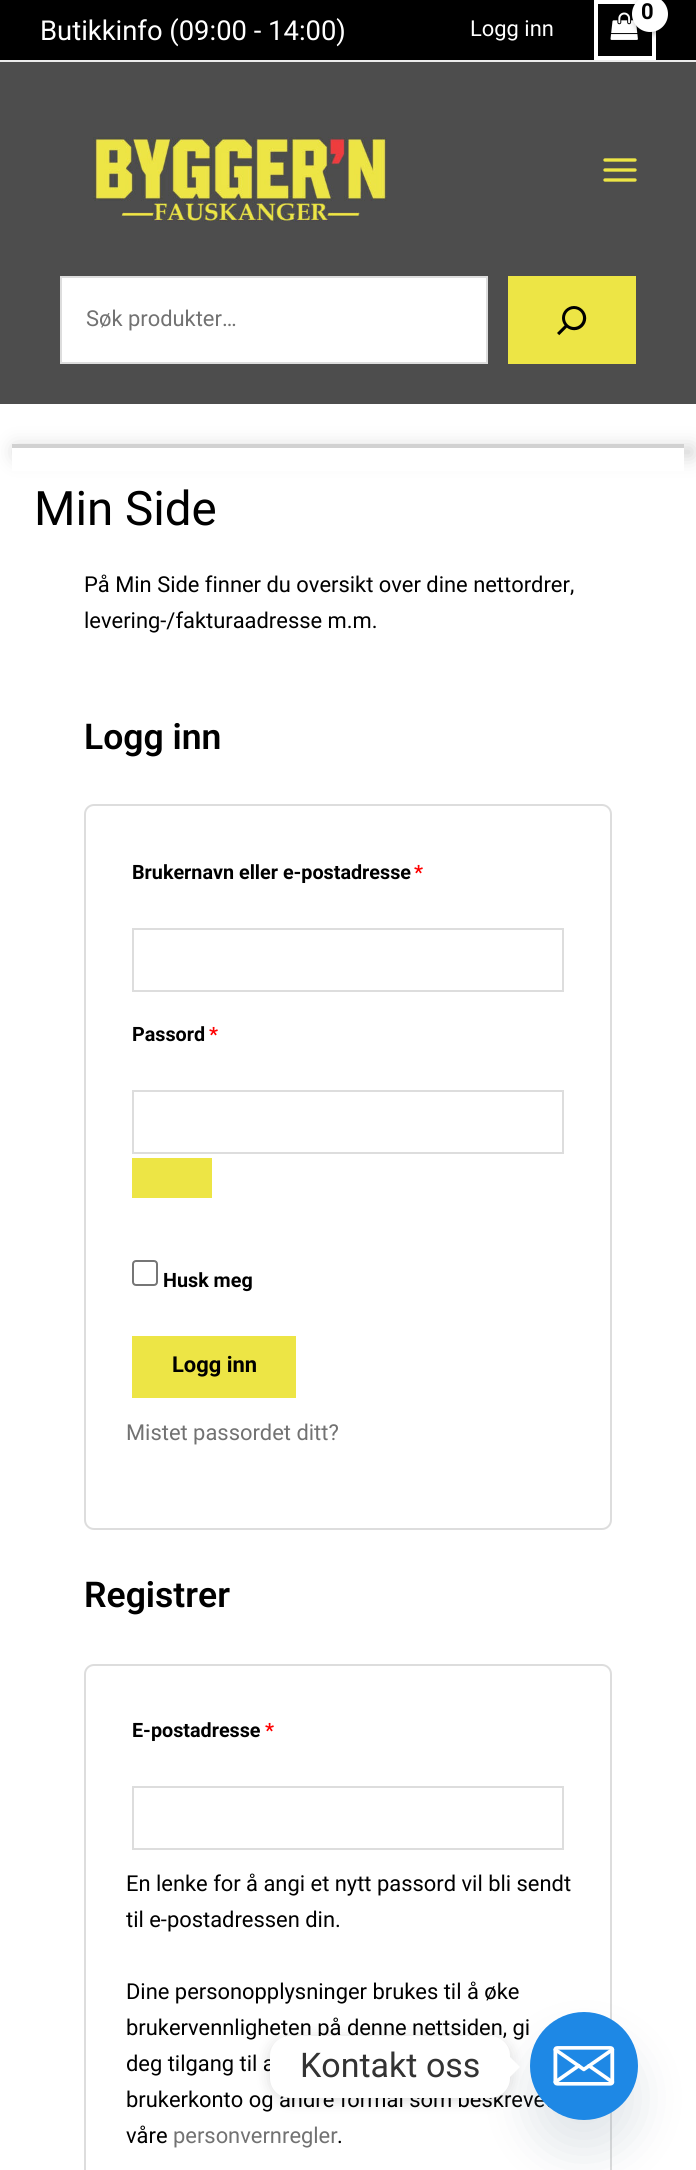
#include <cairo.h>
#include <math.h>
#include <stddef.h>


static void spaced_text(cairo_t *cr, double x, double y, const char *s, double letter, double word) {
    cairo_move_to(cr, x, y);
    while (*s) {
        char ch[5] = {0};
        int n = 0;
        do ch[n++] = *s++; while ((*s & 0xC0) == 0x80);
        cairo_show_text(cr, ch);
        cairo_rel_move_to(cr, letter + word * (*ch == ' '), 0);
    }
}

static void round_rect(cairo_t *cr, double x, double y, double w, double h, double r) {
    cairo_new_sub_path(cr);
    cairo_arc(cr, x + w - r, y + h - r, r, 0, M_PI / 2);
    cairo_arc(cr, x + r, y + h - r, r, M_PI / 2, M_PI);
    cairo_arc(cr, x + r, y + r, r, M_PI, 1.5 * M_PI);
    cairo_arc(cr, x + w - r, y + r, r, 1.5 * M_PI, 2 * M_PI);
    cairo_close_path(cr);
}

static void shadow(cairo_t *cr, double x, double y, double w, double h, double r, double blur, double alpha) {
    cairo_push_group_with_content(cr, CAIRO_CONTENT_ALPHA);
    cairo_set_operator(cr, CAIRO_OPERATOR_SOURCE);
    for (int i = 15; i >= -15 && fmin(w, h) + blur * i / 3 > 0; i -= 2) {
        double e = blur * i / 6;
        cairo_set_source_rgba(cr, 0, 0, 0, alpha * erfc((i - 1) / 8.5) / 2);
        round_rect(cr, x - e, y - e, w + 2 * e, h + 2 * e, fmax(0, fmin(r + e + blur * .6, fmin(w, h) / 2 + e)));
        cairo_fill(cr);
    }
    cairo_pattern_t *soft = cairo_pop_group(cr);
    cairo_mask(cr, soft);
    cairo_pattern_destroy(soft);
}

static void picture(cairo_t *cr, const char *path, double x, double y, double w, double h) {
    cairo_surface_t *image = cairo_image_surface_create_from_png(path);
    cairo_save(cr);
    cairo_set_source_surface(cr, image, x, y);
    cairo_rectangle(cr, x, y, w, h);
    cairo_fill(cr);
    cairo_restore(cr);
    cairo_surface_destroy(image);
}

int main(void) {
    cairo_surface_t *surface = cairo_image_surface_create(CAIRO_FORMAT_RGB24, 696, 2170);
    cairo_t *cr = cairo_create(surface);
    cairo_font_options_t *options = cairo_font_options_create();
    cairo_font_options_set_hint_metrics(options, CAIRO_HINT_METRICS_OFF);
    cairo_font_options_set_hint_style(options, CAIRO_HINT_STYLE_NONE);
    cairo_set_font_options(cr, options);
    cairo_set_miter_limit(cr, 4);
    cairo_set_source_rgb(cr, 1, 1, 1);
    cairo_paint(cr);
    cairo_set_source_rgb(cr, 0, 0, 0);
    cairo_rectangle(cr, 0, 0, 696, 60);
    cairo_fill(cr);
    cairo_set_source_rgb(cr, 0.918, 0.918, 0.918);
    cairo_rectangle(cr, 0, 60, 696, 2);
    cairo_fill(cr);
    cairo_select_font_face(cr, "Roboto", CAIRO_FONT_SLANT_NORMAL, CAIRO_FONT_WEIGHT_NORMAL);
    cairo_set_font_size(cr, 27.4);
    cairo_set_source_rgb(cr, 1, 1, 1);
    cairo_move_to(cr, 40, 40);
    cairo_show_text(cr, "Butikkinfo (09:00 - 14:00)");
    cairo_rectangle(cr, 596, 2, 58, 56);
    cairo_set_line_width(cr, 4);
    cairo_stroke(cr);
    picture(cr, "img1.png", 610, 12, 28, 28);
    cairo_set_source_rgb(cr, 0, 0, 0);
    shadow(cr, 634, -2, 36, 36, 18, 3, 0.3);
    cairo_set_source_rgb(cr, 1, 1, 1);
    cairo_arc(cr, 650, 14, 18, 0, 2 * M_PI);
    cairo_fill(cr);
    cairo_select_font_face(cr, "Roboto", CAIRO_FONT_SLANT_NORMAL, CAIRO_FONT_WEIGHT_BOLD);
    cairo_set_font_size(cr, 22);
    cairo_set_source_rgb(cr, 0, 0, 0);
    spaced_text(cr, 641, 19, "0", -1, 0);
    cairo_select_font_face(cr, "Roboto", CAIRO_FONT_SLANT_NORMAL, CAIRO_FONT_WEIGHT_NORMAL);
    cairo_set_font_size(cr, 21.9);
    cairo_set_source_rgb(cr, 1, 1, 1);
    cairo_move_to(cr, 470, 36);
    cairo_show_text(cr, "Logg inn");
    cairo_set_source_rgb(cr, 0.302, 0.302, 0.302);
    cairo_rectangle(cr, 0, 62, 696, 342);
    cairo_fill(cr);
    picture(cr, "img2.png", 93, 137, 294, 85);
    picture(cr, "img3.png", 603, 158, 34, 24);
    cairo_set_source_rgb(cr, 1, 1, 1);
    cairo_rectangle(cr, 61, 277, 426, 86);
    cairo_fill_preserve(cr);
    cairo_set_source_rgb(cr, 0.867, 0.867, 0.867);
    cairo_set_line_width(cr, 2);
    cairo_stroke(cr);
    cairo_set_source_rgb(cr, 0.447, 0.447, 0.447);
    cairo_move_to(cr, 86, 326);
    cairo_show_text(cr, "Søk produkter…");
    cairo_set_source_rgb(cr, 0.929, 0.898, 0.271);
    cairo_rectangle(cr, 508, 276, 128, 88);
    cairo_fill(cr);
    picture(cr, "img4.png", 557, 306, 30, 30);
    cairo_set_source_rgb(cr, 0.82, 0.82, 0.82);
    shadow(cr, 16, 448, 676, 8, 0, 10, 1);
    cairo_set_source_rgb(cr, 0.82, 0.82, 0.82);
    cairo_rectangle(cr, 12, 444, 672, 4);
    cairo_fill(cr);
    cairo_set_source_rgb(cr, 1, 1, 1);
    cairo_rectangle(cr, 12, 448, 672, 23);
    cairo_fill(cr);
    cairo_set_font_size(cr, 47.5);
    cairo_set_source_rgb(cr, 0, 0, 0);
    cairo_move_to(cr, 34, 525);
    cairo_show_text(cr, "Min Side");
    cairo_set_font_size(cr, 21.9);
    cairo_move_to(cr, 84, 592);
    cairo_show_text(cr, "På Min Side finner du oversikt over dine nettordrer,");
    cairo_move_to(cr, 84, 628);
    cairo_show_text(cr, "levering-/fakturaadresse m.m.");
    cairo_select_font_face(cr, "Roboto SemiBold", CAIRO_FONT_SLANT_NORMAL, CAIRO_FONT_WEIGHT_NORMAL);
    cairo_set_font_size(cr, 35.5);
    cairo_move_to(cr, 84, 749);
    cairo_show_text(cr, "Logg inn");
    round_rect(cr, 85, 805, 526, 724, 9);
    cairo_set_source_rgb(cr, 0.867, 0.867, 0.867);
    cairo_stroke(cr);
    cairo_select_font_face(cr, "Roboto", CAIRO_FONT_SLANT_NORMAL, CAIRO_FONT_WEIGHT_BOLD);
    cairo_set_font_size(cr, 19.75);
    cairo_set_source_rgb(cr, 0, 0, 0);
    cairo_move_to(cr, 132, 879);
    cairo_show_text(cr, "Brukernavn eller e-postadresse");
    cairo_set_source_rgb(cr, 1, 0, 0);
    cairo_move_to(cr, 414, 879);
    cairo_show_text(cr, "*");
    cairo_rectangle(cr, 133, 929, 430, 62);
    cairo_set_source_rgb(cr, 0.867, 0.867, 0.867);
    cairo_stroke(cr);
    cairo_set_source_rgb(cr, 0, 0, 0);
    cairo_move_to(cr, 132, 1041);
    cairo_show_text(cr, "Passord");
    cairo_set_source_rgb(cr, 1, 0, 0);
    cairo_move_to(cr, 209, 1041);
    cairo_show_text(cr, "*");
    cairo_rectangle(cr, 133, 1091, 430, 62);
    cairo_set_source_rgb(cr, 0.867, 0.867, 0.867);
    cairo_stroke(cr);
    cairo_set_source_rgb(cr, 0.929, 0.898, 0.271);
    cairo_rectangle(cr, 132, 1158, 80, 40);
    cairo_fill(cr);
    round_rect(cr, 133, 1261, 24, 24, 3);
    cairo_set_source_rgb(cr, 0.463, 0.463, 0.463);
    cairo_stroke(cr);
    cairo_set_source_rgb(cr, 0, 0, 0);
    cairo_move_to(cr, 163, 1287);
    cairo_show_text(cr, "Husk meg");
    cairo_set_source_rgb(cr, 0.929, 0.898, 0.271);
    cairo_rectangle(cr, 132, 1336, 164, 62);
    cairo_fill(cr);
    cairo_set_font_size(cr, 21.9);
    cairo_set_source_rgb(cr, 0, 0, 0);
    cairo_move_to(cr, 172, 1372);
    cairo_show_text(cr, "Logg inn");
    cairo_select_font_face(cr, "Roboto", CAIRO_FONT_SLANT_NORMAL, CAIRO_FONT_WEIGHT_NORMAL);
    cairo_set_source_rgb(cr, 0.447, 0.447, 0.447);
    cairo_move_to(cr, 126, 1440);
    cairo_show_text(cr, "Mistet passordet ditt?");
    cairo_select_font_face(cr, "Roboto SemiBold", CAIRO_FONT_SLANT_NORMAL, CAIRO_FONT_WEIGHT_NORMAL);
    cairo_set_font_size(cr, 35.5);
    cairo_set_source_rgb(cr, 0, 0, 0);
    cairo_move_to(cr, 84, 1607);
    cairo_show_text(cr, "Registrer");
    round_rect(cr, 85, 1665, 526, 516, 9);
    cairo_set_source_rgb(cr, 0.867, 0.867, 0.867);
    cairo_stroke(cr);
    cairo_select_font_face(cr, "Roboto", CAIRO_FONT_SLANT_NORMAL, CAIRO_FONT_WEIGHT_BOLD);
    cairo_set_font_size(cr, 19.75);
    cairo_set_source_rgb(cr, 0, 0, 0);
    cairo_move_to(cr, 132, 1737);
    cairo_show_text(cr, "E-postadresse");
    cairo_set_source_rgb(cr, 1, 0, 0);
    cairo_move_to(cr, 265, 1737);
    cairo_show_text(cr, "*");
    cairo_rectangle(cr, 133, 1787, 430, 62);
    cairo_set_source_rgb(cr, 0.867, 0.867, 0.867);
    cairo_stroke(cr);
    cairo_select_font_face(cr, "Roboto", CAIRO_FONT_SLANT_NORMAL, CAIRO_FONT_WEIGHT_NORMAL);
    cairo_set_font_size(cr, 21.9);
    cairo_set_source_rgb(cr, 0, 0, 0);
    cairo_move_to(cr, 126, 1891);
    cairo_show_text(cr, "En lenke for å angi et nytt passord vil bli sendt");
    cairo_move_to(cr, 126, 1927);
    cairo_show_text(cr, "til e-postadressen din.");
    cairo_move_to(cr, 126, 1999);
    cairo_show_text(cr, "Dine personopplysninger brukes til å øke");
    cairo_move_to(cr, 126, 2035);
    cairo_show_text(cr, "brukervennligheten på denne nettsiden, gi");
    cairo_move_to(cr, 126, 2071);
    cairo_show_text(cr, "deg tilgang til a");
    cairo_move_to(cr, 126, 2107);
    cairo_show_text(cr, "brukerkonto og andre formål som beskrevet");
    cairo_move_to(cr, 126, 2143);
    cairo_show_text(cr, "våre");
    cairo_set_source_rgb(cr, 0.447, 0.447, 0.447);
    cairo_move_to(cr, 173, 2143);
    cairo_show_text(cr, "personvernregler");
    cairo_set_source_rgb(cr, 0, 0, 0);
    cairo_move_to(cr, 337, 2143);
    cairo_show_text(cr, ".");
    cairo_set_source_rgb(cr, 0.286, 0.408, 0.494);
    shadow(cr, 530, 2044, 108, 108, 54, 24, 0.16);
    picture(cr, "img5.png", 530, 2012, 108, 108);
    cairo_set_source_rgb(cr, 0, 0, 0);
    shadow(cr, 270, 2038, 240, 62, 20, 7.5, 0.15);
    cairo_set_source_rgb(cr, 1, 1, 1);
    round_rect(cr, 270, 2036, 240, 62, 20);
    cairo_fill(cr);
    cairo_set_font_size(cr, 34);
    cairo_set_source_rgb(cr, 0.2, 0.2, 0.2);
    cairo_move_to(cr, 300, 2077);
    cairo_show_text(cr, "Kontakt oss");
    cairo_set_source_rgb(cr, 1, 1, 1);
    cairo_new_path(cr);
    cairo_move_to(cr, 510, 2077);
    cairo_line_to(cr, 510, 2057);
    cairo_line_to(cr, 520, 2067);
    cairo_close_path(cr);
    cairo_fill(cr);
    cairo_surface_write_to_png(surface, "page.png");
    cairo_font_options_destroy(options);
    cairo_destroy(cr);
    cairo_surface_destroy(surface);
    return 0;
}
